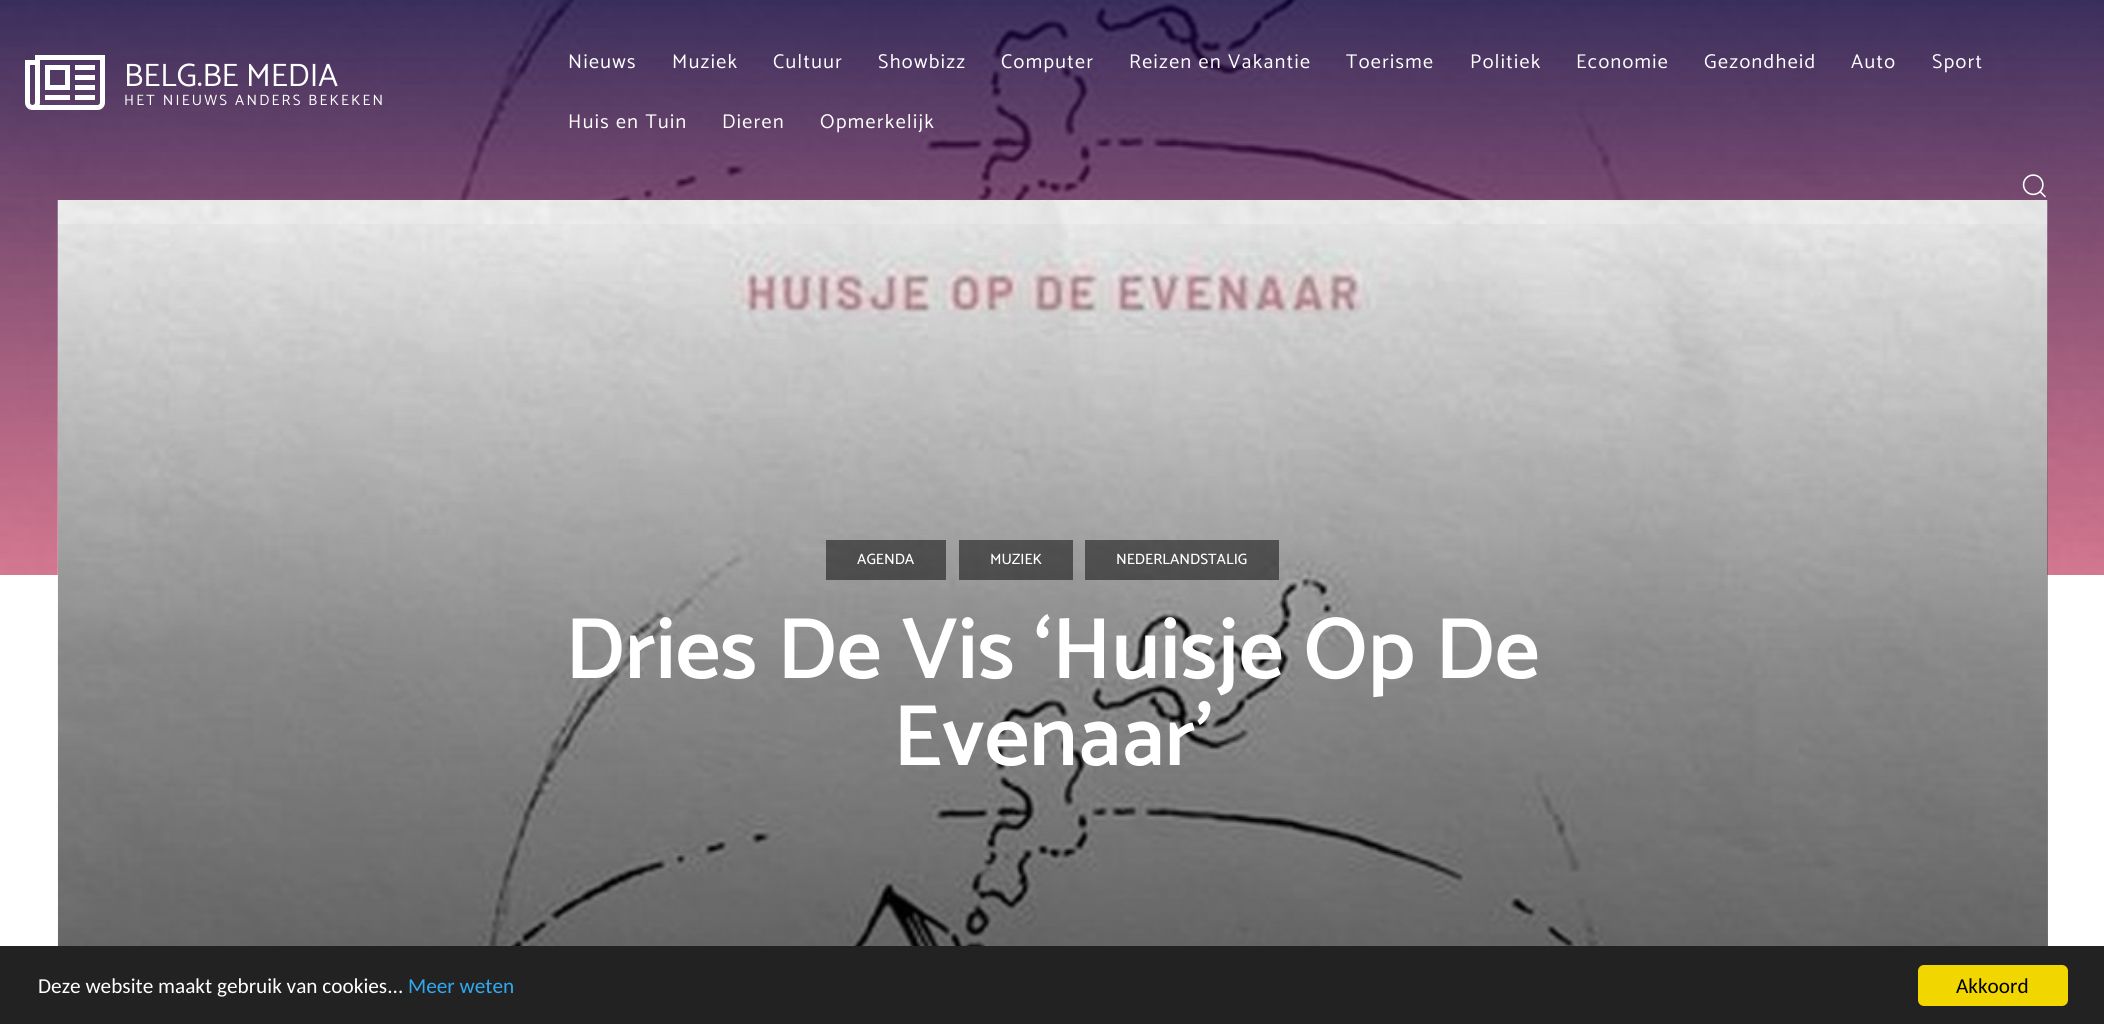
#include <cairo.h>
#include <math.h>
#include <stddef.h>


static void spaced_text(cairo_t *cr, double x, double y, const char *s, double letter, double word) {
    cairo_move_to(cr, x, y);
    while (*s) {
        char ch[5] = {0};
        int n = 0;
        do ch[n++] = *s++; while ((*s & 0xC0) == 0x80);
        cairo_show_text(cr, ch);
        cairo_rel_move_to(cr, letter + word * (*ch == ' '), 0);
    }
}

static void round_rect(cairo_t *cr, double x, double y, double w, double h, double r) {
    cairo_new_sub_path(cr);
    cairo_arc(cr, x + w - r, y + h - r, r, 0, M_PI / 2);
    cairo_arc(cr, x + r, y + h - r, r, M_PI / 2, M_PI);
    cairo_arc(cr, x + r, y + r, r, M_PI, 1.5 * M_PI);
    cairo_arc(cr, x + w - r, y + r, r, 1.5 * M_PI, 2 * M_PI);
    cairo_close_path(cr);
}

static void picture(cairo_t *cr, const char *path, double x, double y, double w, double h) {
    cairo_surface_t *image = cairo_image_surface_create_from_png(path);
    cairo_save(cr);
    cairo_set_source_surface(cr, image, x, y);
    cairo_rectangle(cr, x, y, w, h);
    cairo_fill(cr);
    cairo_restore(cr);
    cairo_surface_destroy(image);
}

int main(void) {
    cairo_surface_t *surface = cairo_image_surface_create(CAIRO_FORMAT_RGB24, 2104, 1024);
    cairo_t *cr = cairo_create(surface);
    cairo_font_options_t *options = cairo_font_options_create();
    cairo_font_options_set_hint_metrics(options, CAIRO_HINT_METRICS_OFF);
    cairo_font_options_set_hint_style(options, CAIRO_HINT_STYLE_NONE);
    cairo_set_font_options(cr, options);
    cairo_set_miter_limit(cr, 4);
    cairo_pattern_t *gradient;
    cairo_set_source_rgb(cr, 1, 1, 1);
    cairo_paint(cr);
    picture(cr, "img3.png", 0, 0, 2104, 575);
    picture(cr, "img1.png", 25, 55, 80, 55);
    cairo_select_font_face(cr, "Catamaran", CAIRO_FONT_SLANT_NORMAL, CAIRO_FONT_WEIGHT_NORMAL);
    cairo_set_font_size(cr, 32.5);
    cairo_set_source_rgb(cr, 1, 1, 1);
    cairo_move_to(cr, 124, 86);
    cairo_show_text(cr, "BELG.BE MEDIA");
    cairo_set_font_size(cr, 15);
    spaced_text(cr, 124, 105, "HET NIEUWS ANDERS BEKEKEN", 2.25, 0);
    cairo_set_font_size(cr, 20);
    spaced_text(cr, 568, 68, "Nieuws", 1.4, 0);
    spaced_text(cr, 672, 68, "Muziek", 1.4, 0);
    spaced_text(cr, 773, 68, "Cultuur", 1.4, 0);
    spaced_text(cr, 878, 68, "Showbizz", 1.4, 0);
    spaced_text(cr, 1001, 68, "Computer", 1.4, 0);
    spaced_text(cr, 1129, 68, "Reizen en Vakantie", 1.4, 0);
    spaced_text(cr, 1346, 68, "Toerisme", 1.4, 0);
    spaced_text(cr, 1470, 68, "Politiek", 1.4, 0);
    spaced_text(cr, 1576, 68, "Economie", 1.4, 0);
    spaced_text(cr, 1704, 68, "Gezondheid", 1.4, 0);
    spaced_text(cr, 1851, 68, "Auto", 1.4, 0);
    spaced_text(cr, 1932, 68, "Sport", 1.4, 0);
    spaced_text(cr, 568, 128, "Huis en Tuin", 1.4, 0);
    spaced_text(cr, 722, 128, "Dieren", 1.4, 0);
    spaced_text(cr, 820, 128, "Opmerkelijk", 1.4, 0);
    picture(cr, "img2.png", 2022, 174, 24, 24);
    picture(cr, "img4.png", 57, 200, 1991, 746);
    gradient = cairo_pattern_create_linear(1053, 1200, 1053, 200);
    cairo_pattern_add_color_stop_rgba(gradient, 0, 0, 0, 0, 0.7);
    cairo_pattern_add_color_stop_rgba(gradient, 0.55, 0, 0, 0, 0.4);
    cairo_pattern_add_color_stop_rgba(gradient, 1, 0, 0, 0, 0);
    cairo_set_source(cr, gradient);
    cairo_pattern_destroy(gradient);
    cairo_rectangle(cr, 58, 224, 1990, 722);
    cairo_fill(cr);
    cairo_set_source_rgba(cr, 0, 0, 0, 0.5);
    cairo_rectangle(cr, 826, 540, 120, 40);
    cairo_fill(cr);
    cairo_select_font_face(cr, "Catamaran Medium", CAIRO_FONT_SLANT_NORMAL, CAIRO_FONT_WEIGHT_NORMAL);
    cairo_set_font_size(cr, 15);
    cairo_set_source_rgb(cr, 1, 1, 1);
    cairo_move_to(cr, 857, 564);
    cairo_show_text(cr, "AGENDA");
    cairo_set_source_rgba(cr, 0, 0, 0, 0.5);
    cairo_rectangle(cr, 959, 540, 114, 40);
    cairo_fill(cr);
    cairo_set_source_rgb(cr, 1, 1, 1);
    cairo_move_to(cr, 990, 564);
    cairo_show_text(cr, "MUZIEK");
    cairo_set_source_rgba(cr, 0, 0, 0, 0.5);
    cairo_rectangle(cr, 1085, 540, 194, 40);
    cairo_fill(cr);
    cairo_set_source_rgb(cr, 1, 1, 1);
    cairo_move_to(cr, 1116, 564);
    cairo_show_text(cr, "NEDERLANDSTALIG");
    cairo_select_font_face(cr, "Catamaran SemiBold", CAIRO_FONT_SLANT_NORMAL, CAIRO_FONT_WEIGHT_NORMAL);
    cairo_set_font_size(cr, 87.5);
    cairo_move_to(cr, 565, 678);
    cairo_show_text(cr, "Dries De Vis ‘Huisje Op De");
    cairo_move_to(cr, 893, 765);
    cairo_show_text(cr, "Evenaar’");
    cairo_set_source_rgb(cr, 0.133, 0.133, 0.133);
    cairo_rectangle(cr, 0, 946, 2104, 78);
    cairo_fill(cr);
    cairo_select_font_face(cr, "Carlito", CAIRO_FONT_SLANT_NORMAL, CAIRO_FONT_WEIGHT_NORMAL);
    cairo_set_font_size(cr, 21.25);
    cairo_set_source_rgb(cr, 1, 1, 1);
    cairo_move_to(cr, 38, 993);
    cairo_show_text(cr, "Deze website maakt gebruik van cookies...");
    cairo_set_source_rgb(cr, 0.192, 0.659, 0.941);
    cairo_move_to(cr, 408, 993);
    cairo_show_text(cr, "Meer weten");
    cairo_set_source_rgb(cr, 0.945, 0.839, 0);
    round_rect(cr, 1918, 965, 150, 41, 6);
    cairo_fill(cr);
    cairo_set_source_rgb(cr, 0, 0, 0);
    cairo_move_to(cr, 1956, 993);
    cairo_show_text(cr, "Akkoord");
    cairo_surface_write_to_png(surface, "page.png");
    cairo_font_options_destroy(options);
    cairo_destroy(cr);
    cairo_surface_destroy(surface);
    return 0;
}
